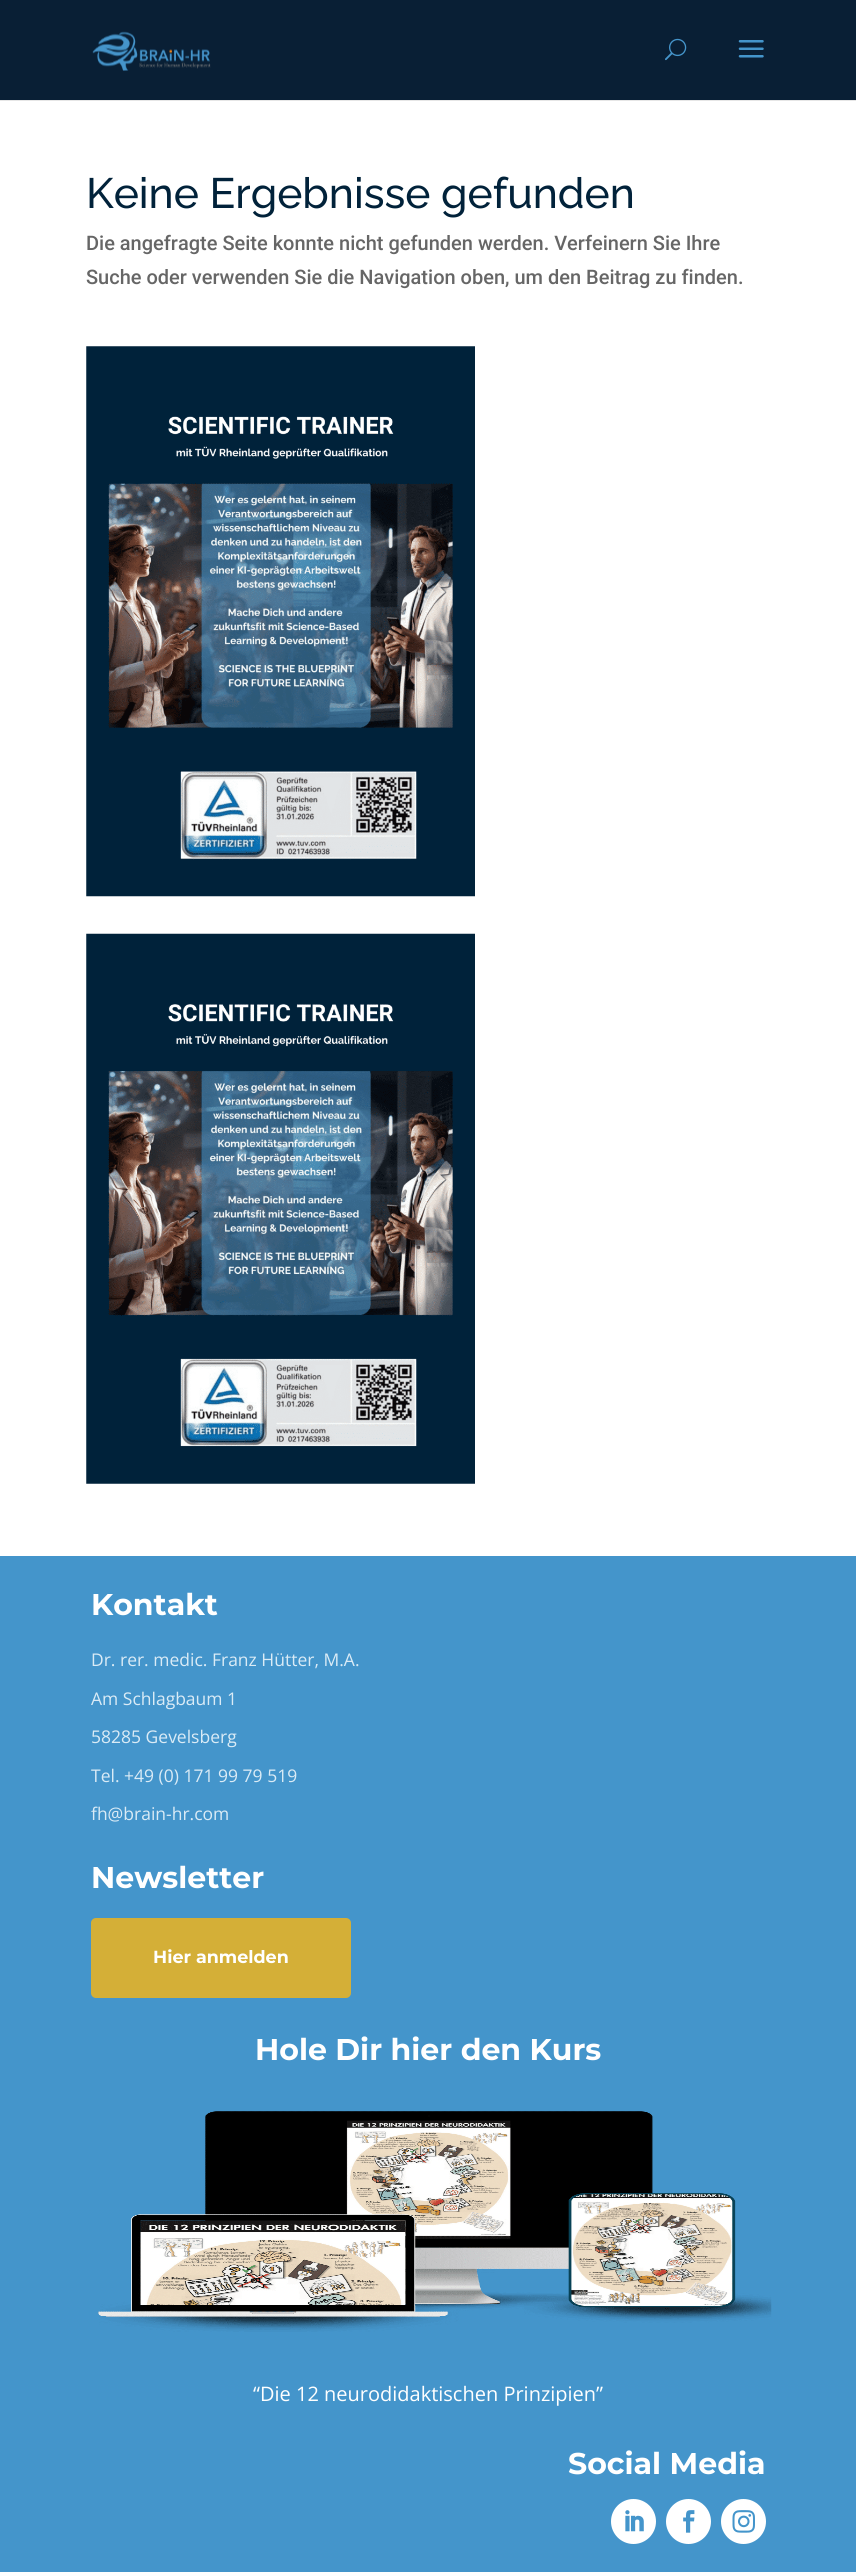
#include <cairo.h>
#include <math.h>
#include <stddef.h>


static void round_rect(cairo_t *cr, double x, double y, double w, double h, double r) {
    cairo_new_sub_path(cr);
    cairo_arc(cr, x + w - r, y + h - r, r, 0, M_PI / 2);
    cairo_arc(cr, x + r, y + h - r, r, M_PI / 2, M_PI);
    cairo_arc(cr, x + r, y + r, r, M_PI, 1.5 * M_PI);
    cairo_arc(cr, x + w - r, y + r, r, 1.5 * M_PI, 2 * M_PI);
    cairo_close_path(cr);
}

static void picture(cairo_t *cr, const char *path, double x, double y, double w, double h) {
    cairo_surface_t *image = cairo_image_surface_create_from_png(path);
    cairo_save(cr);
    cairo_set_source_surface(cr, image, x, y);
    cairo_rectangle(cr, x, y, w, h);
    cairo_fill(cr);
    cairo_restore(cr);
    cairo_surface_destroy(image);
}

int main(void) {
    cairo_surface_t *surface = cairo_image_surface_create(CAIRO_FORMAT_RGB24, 856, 2572);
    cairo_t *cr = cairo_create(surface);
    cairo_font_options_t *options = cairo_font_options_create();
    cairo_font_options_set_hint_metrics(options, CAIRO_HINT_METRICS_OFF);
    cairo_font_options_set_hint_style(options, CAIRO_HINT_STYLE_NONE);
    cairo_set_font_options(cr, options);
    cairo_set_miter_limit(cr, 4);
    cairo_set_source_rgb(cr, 1, 1, 1);
    cairo_paint(cr);
    cairo_set_source_rgb(cr, 0.902, 0.902, 0.902);
    cairo_rectangle(cr, 0, 100, 856, 1);
    cairo_fill(cr);
    cairo_set_source_rgb(cr, 0.039, 0.122, 0.208);
    cairo_rectangle(cr, 0, 0, 856, 100);
    cairo_fill(cr);
    picture(cr, "img1.png", 92, 31, 119, 40);
    picture(cr, "img2.png", 665, 38, 22, 23);
    picture(cr, "img3.png", 738, 40, 26, 18);
    cairo_select_font_face(cr, "Raleway Medium", CAIRO_FONT_SLANT_NORMAL, CAIRO_FONT_WEIGHT_NORMAL);
    cairo_set_font_size(cr, 42.5);
    cairo_set_source_rgb(cr, 0.004, 0.133, 0.227);
    cairo_move_to(cr, 86, 208);
    cairo_show_text(cr, "Keine Ergebnisse gefunden");
    cairo_select_font_face(cr, "Roboto Medium", CAIRO_FONT_SLANT_NORMAL, CAIRO_FONT_WEIGHT_NORMAL);
    cairo_set_font_size(cr, 20);
    cairo_set_source_rgb(cr, 0.4, 0.4, 0.4);
    cairo_move_to(cr, 86, 250);
    cairo_show_text(cr, "Die angefragte Seite konnte nicht gefunden werden. Verfeinern Sie Ihre");
    cairo_move_to(cr, 86, 284);
    cairo_show_text(cr, "Suche oder verwenden Sie die Navigation oben, um den Beitrag zu finden.");
    picture(cr, "img4.png", 86, 346, 389, 551);
    picture(cr, "img5.png", 86, 933, 389, 551);
    cairo_set_source_rgb(cr, 0.267, 0.584, 0.796);
    cairo_rectangle(cr, 0, 1556, 856, 1016);
    cairo_fill(cr);
    cairo_select_font_face(cr, "Montserrat", CAIRO_FONT_SLANT_NORMAL, CAIRO_FONT_WEIGHT_BOLD);
    cairo_set_font_size(cr, 30);
    cairo_set_source_rgb(cr, 1, 1, 1);
    cairo_move_to(cr, 91, 1615);
    cairo_show_text(cr, "Kontakt");
    cairo_select_font_face(cr, "Open Sans", CAIRO_FONT_SLANT_NORMAL, CAIRO_FONT_WEIGHT_NORMAL);
    cairo_set_font_size(cr, 17.5);
    cairo_set_source_rgb(cr, 0.855, 0.918, 0.961);
    cairo_move_to(cr, 91, 1666);
    cairo_show_text(cr, "Dr. rer. medic. Franz Hütter, M.A.");
    cairo_move_to(cr, 91, 1705);
    cairo_show_text(cr, "Am Schlagbaum 1");
    cairo_move_to(cr, 91, 1743);
    cairo_show_text(cr, "58285 Gevelsberg");
    cairo_move_to(cr, 91, 1782);
    cairo_show_text(cr, "Tel. +49 (0) 171 99 79 519");
    cairo_move_to(cr, 91, 1820);
    cairo_show_text(cr, "fh@brain-hr.com");
    cairo_select_font_face(cr, "Montserrat", CAIRO_FONT_SLANT_NORMAL, CAIRO_FONT_WEIGHT_BOLD);
    cairo_set_font_size(cr, 30);
    cairo_set_source_rgb(cr, 1, 1, 1);
    cairo_move_to(cr, 91, 1888);
    cairo_show_text(cr, "Newsletter");
    cairo_set_source_rgb(cr, 0.831, 0.686, 0.216);
    round_rect(cr, 91, 1918, 260, 80, 5);
    cairo_fill(cr);
    cairo_set_font_size(cr, 17.5);
    cairo_set_source_rgb(cr, 1, 1, 1);
    cairo_move_to(cr, 153, 1963);
    cairo_show_text(cr, "Hier anmelden");
    cairo_set_font_size(cr, 30);
    cairo_move_to(cr, 255, 2060);
    cairo_show_text(cr, "Hole Dir hier den Kurs");
    picture(cr, "img6.png", 98, 2111, 674, 221);
    cairo_select_font_face(cr, "Open Sans", CAIRO_FONT_SLANT_NORMAL, CAIRO_FONT_WEIGHT_NORMAL);
    cairo_set_font_size(cr, 20);
    cairo_move_to(cr, 253, 2401);
    cairo_show_text(cr, "“Die 12 neurodidaktischen Prinzipien”");
    cairo_select_font_face(cr, "Montserrat", CAIRO_FONT_SLANT_NORMAL, CAIRO_FONT_WEIGHT_BOLD);
    cairo_set_font_size(cr, 30);
    cairo_move_to(cr, 568, 2474);
    cairo_show_text(cr, "Social Media");
    cairo_new_path(cr);
    cairo_arc(cr, 633.5, 2521.5, 22.5, 0, 2 * M_PI);
    cairo_fill(cr);
    picture(cr, "img7.png", 625, 2510, 19, 22);
    cairo_arc(cr, 688.5, 2521.5, 22.5, 0, 2 * M_PI);
    cairo_fill(cr);
    picture(cr, "img8.png", 683, 2510, 12, 23);
    cairo_arc(cr, 743.5, 2521.5, 22.5, 0, 2 * M_PI);
    cairo_fill(cr);
    picture(cr, "img9.png", 732, 2510, 23, 23);
    cairo_surface_write_to_png(surface, "page.png");
    cairo_font_options_destroy(options);
    cairo_destroy(cr);
    cairo_surface_destroy(surface);
    return 0;
}
